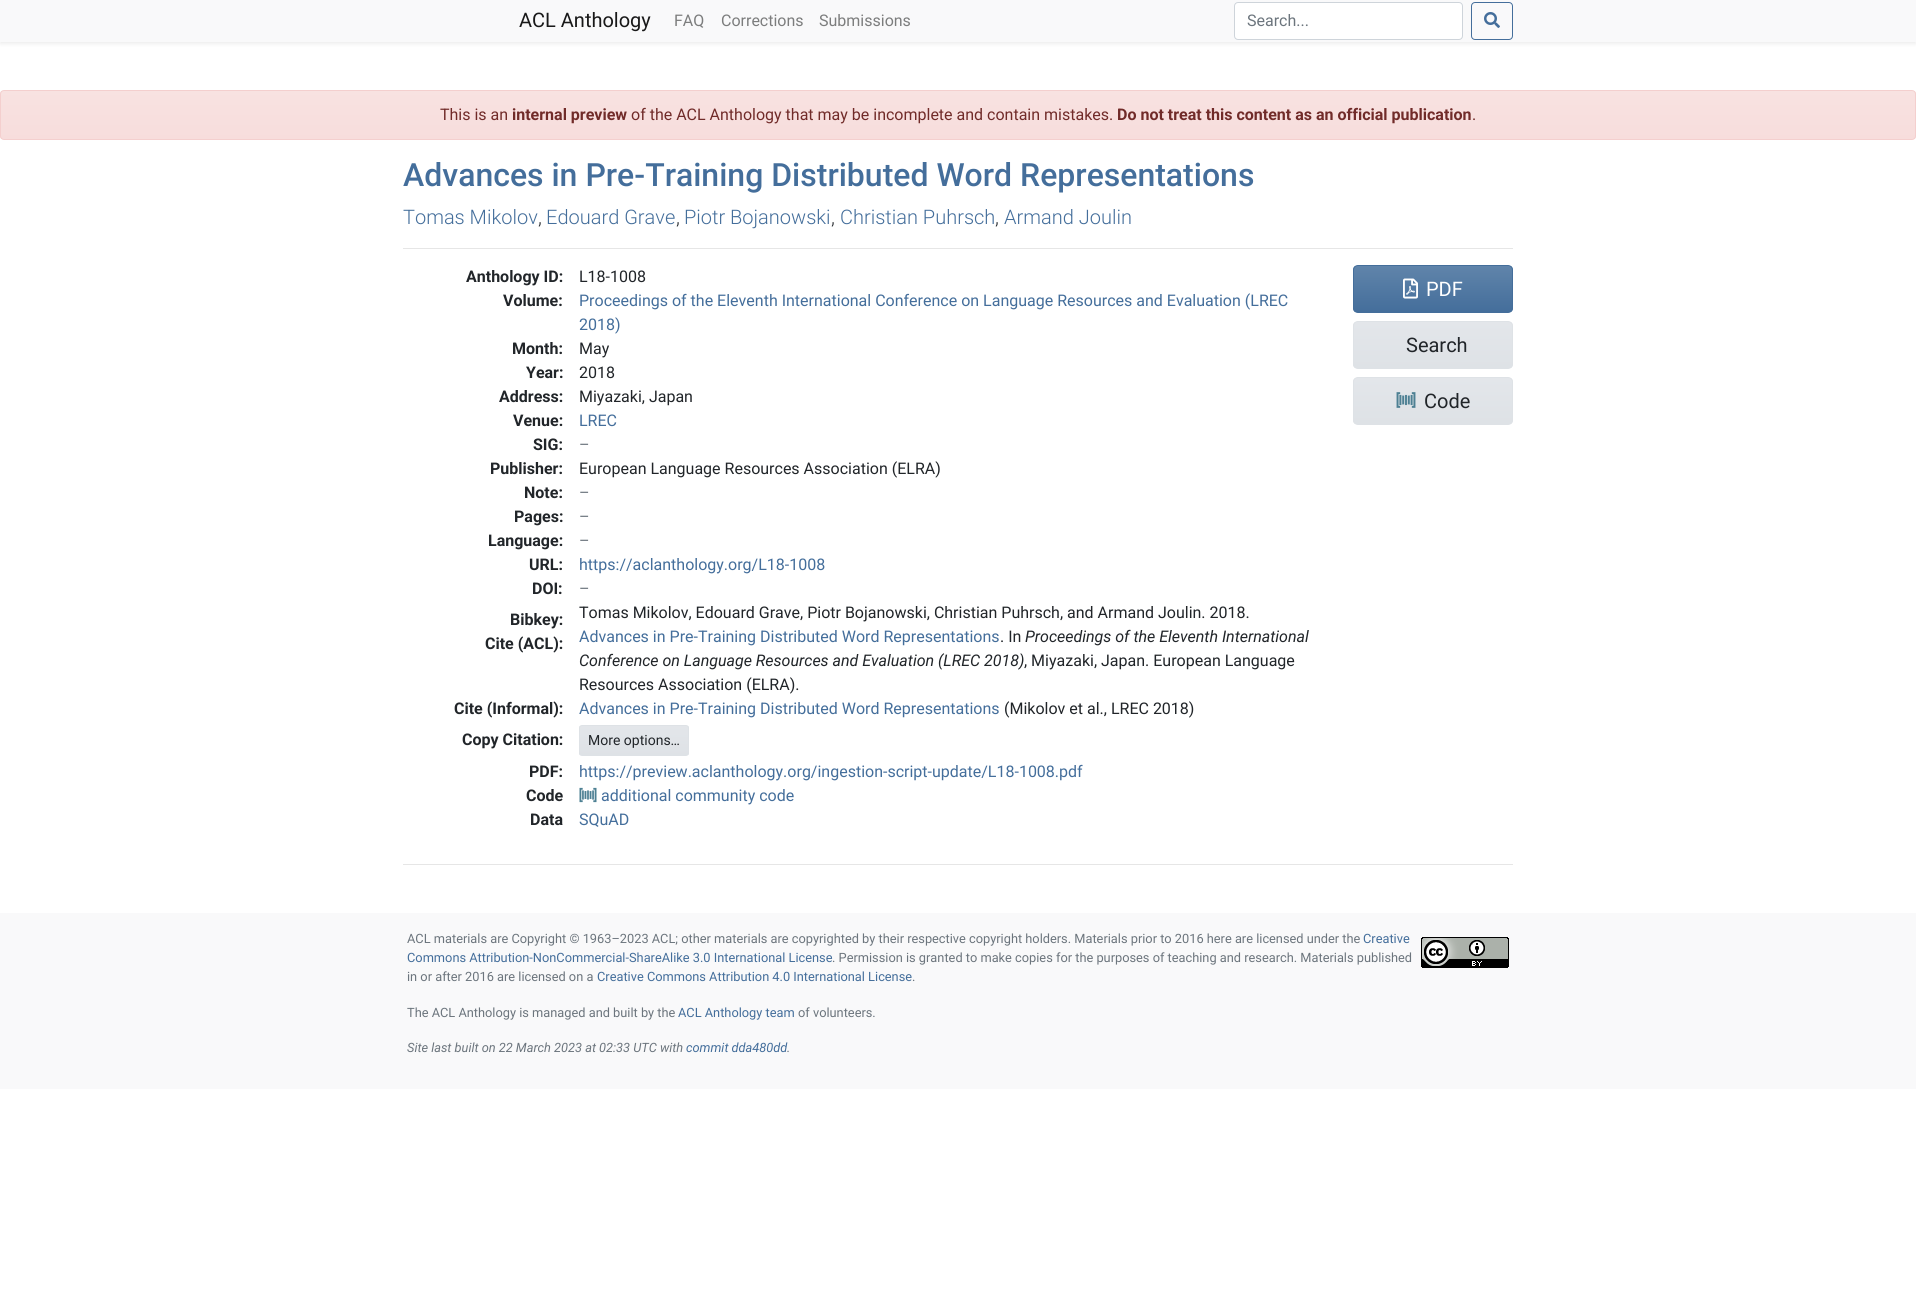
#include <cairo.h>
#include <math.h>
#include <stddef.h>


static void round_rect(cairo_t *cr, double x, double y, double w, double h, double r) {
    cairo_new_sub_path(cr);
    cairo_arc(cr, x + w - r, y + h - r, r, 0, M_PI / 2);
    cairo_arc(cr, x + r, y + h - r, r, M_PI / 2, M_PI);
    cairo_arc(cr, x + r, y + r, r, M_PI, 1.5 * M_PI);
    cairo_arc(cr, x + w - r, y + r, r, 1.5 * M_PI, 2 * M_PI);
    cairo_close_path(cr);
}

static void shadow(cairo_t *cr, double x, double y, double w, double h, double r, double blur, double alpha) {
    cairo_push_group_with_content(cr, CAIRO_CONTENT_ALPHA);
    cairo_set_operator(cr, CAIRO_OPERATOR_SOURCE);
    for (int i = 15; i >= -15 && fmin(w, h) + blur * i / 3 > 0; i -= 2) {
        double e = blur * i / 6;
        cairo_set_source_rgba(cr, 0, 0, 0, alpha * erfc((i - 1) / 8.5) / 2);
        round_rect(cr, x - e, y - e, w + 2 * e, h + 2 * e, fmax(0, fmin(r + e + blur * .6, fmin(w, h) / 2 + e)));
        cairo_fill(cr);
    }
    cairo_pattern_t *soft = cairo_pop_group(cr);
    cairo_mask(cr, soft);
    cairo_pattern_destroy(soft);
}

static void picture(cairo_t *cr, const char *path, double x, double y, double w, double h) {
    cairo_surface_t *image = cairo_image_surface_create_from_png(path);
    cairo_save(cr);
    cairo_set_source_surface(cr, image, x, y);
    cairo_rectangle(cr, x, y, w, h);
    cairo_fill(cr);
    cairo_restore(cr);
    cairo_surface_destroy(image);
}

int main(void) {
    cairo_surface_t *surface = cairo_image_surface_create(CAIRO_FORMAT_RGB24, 1916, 1297);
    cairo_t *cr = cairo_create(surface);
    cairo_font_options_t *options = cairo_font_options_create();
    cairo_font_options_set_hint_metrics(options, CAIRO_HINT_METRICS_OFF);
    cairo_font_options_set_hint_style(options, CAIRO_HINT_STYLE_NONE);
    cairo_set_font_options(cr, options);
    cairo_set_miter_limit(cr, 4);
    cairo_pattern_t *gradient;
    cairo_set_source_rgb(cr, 1, 1, 1);
    cairo_paint(cr);
    cairo_set_source_rgb(cr, 0, 0, 0);
    shadow(cr, 0, 2, 1916, 42, 0, 2, 0.07);
    cairo_set_source_rgb(cr, 0.973, 0.976, 0.98);
    cairo_rectangle(cr, 0, 0, 1916, 42);
    cairo_fill(cr);
    cairo_select_font_face(cr, "Roboto", CAIRO_FONT_SLANT_NORMAL, CAIRO_FONT_WEIGHT_NORMAL);
    cairo_set_font_size(cr, 20);
    cairo_set_source_rgb(cr, 0.098, 0.098, 0.098);
    cairo_move_to(cr, 519, 27);
    cairo_show_text(cr, "ACL Anthology");
    cairo_set_font_size(cr, 16);
    cairo_set_source_rgb(cr, 0.486, 0.49, 0.49);
    cairo_move_to(cr, 674, 26);
    cairo_show_text(cr, "FAQ");
    cairo_move_to(cr, 721, 26);
    cairo_show_text(cr, "Corrections");
    cairo_move_to(cr, 819, 26);
    cairo_show_text(cr, "Submissions");
    cairo_set_source_rgb(cr, 1, 1, 1);
    round_rect(cr, 1234.5, 2.5, 228, 37, 3.5);
    cairo_fill_preserve(cr);
    cairo_set_source_rgb(cr, 0.808, 0.831, 0.855);
    cairo_set_line_width(cr, 1);
    cairo_stroke(cr);
    cairo_set_source_rgb(cr, 0.424, 0.459, 0.49);
    cairo_move_to(cr, 1247, 26);
    cairo_show_text(cr, "Search...");
    round_rect(cr, 1471.5, 2.5, 41, 37, 3.5);
    cairo_set_source_rgb(cr, 0.267, 0.431, 0.608);
    cairo_stroke(cr);
    picture(cr, "img1.png", 1484, 12, 16, 16);
    cairo_save(cr);
    round_rect(cr, 0, 90, 1916, 50, 4);
    cairo_clip(cr);
    gradient = cairo_pattern_create_linear(958, 91, 958, 139);
    cairo_pattern_add_color_stop_rgba(gradient, 0, 0.973, 0.886, 0.882, 1);
    cairo_pattern_add_color_stop_rgba(gradient, 1, 0.969, 0.867, 0.863, 1);
    cairo_set_source(cr, gradient);
    cairo_pattern_destroy(gradient);
    cairo_rectangle(cr, 0, 91, 1916, 48);
    cairo_fill(cr);
    cairo_restore(cr);
    round_rect(cr, 0.5, 90.5, 1915, 49, 3.5);
    cairo_set_source_rgb(cr, 0.957, 0.812, 0.808);
    cairo_stroke(cr);
    cairo_set_source_rgb(cr, 0.443, 0.169, 0.161);
    cairo_move_to(cr, 440, 120);
    cairo_show_text(cr, "This is an");
    cairo_select_font_face(cr, "Roboto", CAIRO_FONT_SLANT_NORMAL, CAIRO_FONT_WEIGHT_BOLD);
    cairo_move_to(cr, 512, 120);
    cairo_show_text(cr, "internal preview");
    cairo_select_font_face(cr, "Roboto", CAIRO_FONT_SLANT_NORMAL, CAIRO_FONT_WEIGHT_NORMAL);
    cairo_move_to(cr, 631, 120);
    cairo_show_text(cr, "of the ACL Anthology that may be incomplete and contain mistakes.");
    cairo_select_font_face(cr, "Roboto", CAIRO_FONT_SLANT_NORMAL, CAIRO_FONT_WEIGHT_BOLD);
    cairo_move_to(cr, 1117, 120);
    cairo_show_text(cr, "Do not treat this content as an official publication");
    cairo_select_font_face(cr, "Roboto", CAIRO_FONT_SLANT_NORMAL, CAIRO_FONT_WEIGHT_NORMAL);
    cairo_move_to(cr, 1472, 120);
    cairo_show_text(cr, ".");
    cairo_select_font_face(cr, "Roboto Medium", CAIRO_FONT_SLANT_NORMAL, CAIRO_FONT_WEIGHT_NORMAL);
    cairo_set_font_size(cr, 32);
    cairo_set_source_rgb(cr, 0.267, 0.431, 0.608);
    cairo_move_to(cr, 403, 186);
    cairo_show_text(cr, "Advances in Pre-Training Distributed Word Representations");
    cairo_select_font_face(cr, "Roboto Light", CAIRO_FONT_SLANT_NORMAL, CAIRO_FONT_WEIGHT_NORMAL);
    cairo_set_font_size(cr, 20);
    cairo_move_to(cr, 403, 224);
    cairo_show_text(cr, "Tomas Mikolov");
    cairo_set_source_rgb(cr, 0.129, 0.145, 0.161);
    cairo_move_to(cr, 538, 224);
    cairo_show_text(cr, ",");
    cairo_set_source_rgb(cr, 0.267, 0.431, 0.608);
    cairo_move_to(cr, 546, 224);
    cairo_show_text(cr, "Edouard Grave");
    cairo_set_source_rgb(cr, 0.129, 0.145, 0.161);
    cairo_move_to(cr, 676, 224);
    cairo_show_text(cr, ",");
    cairo_set_source_rgb(cr, 0.267, 0.431, 0.608);
    cairo_move_to(cr, 684, 224);
    cairo_show_text(cr, "Piotr Bojanowski");
    cairo_set_source_rgb(cr, 0.129, 0.145, 0.161);
    cairo_move_to(cr, 831, 224);
    cairo_show_text(cr, ",");
    cairo_set_source_rgb(cr, 0.267, 0.431, 0.608);
    cairo_move_to(cr, 840, 224);
    cairo_show_text(cr, "Christian Puhrsch");
    cairo_set_source_rgb(cr, 0.129, 0.145, 0.161);
    cairo_move_to(cr, 995, 224);
    cairo_show_text(cr, ",");
    cairo_set_source_rgb(cr, 0.267, 0.431, 0.608);
    cairo_move_to(cr, 1004, 224);
    cairo_show_text(cr, "Armand Joulin");
    cairo_set_source_rgb(cr, 0.902, 0.902, 0.902);
    cairo_rectangle(cr, 403, 248, 1110, 1);
    cairo_fill(cr);
    cairo_select_font_face(cr, "Roboto", CAIRO_FONT_SLANT_NORMAL, CAIRO_FONT_WEIGHT_BOLD);
    cairo_set_font_size(cr, 16);
    cairo_set_source_rgb(cr, 0.129, 0.145, 0.161);
    cairo_move_to(cr, 466, 282);
    cairo_show_text(cr, "Anthology ID:");
    cairo_select_font_face(cr, "Roboto", CAIRO_FONT_SLANT_NORMAL, CAIRO_FONT_WEIGHT_NORMAL);
    cairo_move_to(cr, 579, 282);
    cairo_show_text(cr, "L18-1008");
    cairo_select_font_face(cr, "Roboto", CAIRO_FONT_SLANT_NORMAL, CAIRO_FONT_WEIGHT_BOLD);
    cairo_move_to(cr, 503, 306);
    cairo_show_text(cr, "Volume:");
    cairo_select_font_face(cr, "Roboto", CAIRO_FONT_SLANT_NORMAL, CAIRO_FONT_WEIGHT_NORMAL);
    cairo_set_source_rgb(cr, 0.267, 0.431, 0.608);
    cairo_move_to(cr, 579, 306);
    cairo_show_text(cr, "Proceedings of the Eleventh International Conference on Language Resources and Evaluation (LREC");
    cairo_move_to(cr, 579, 330);
    cairo_show_text(cr, "2018)");
    cairo_select_font_face(cr, "Roboto", CAIRO_FONT_SLANT_NORMAL, CAIRO_FONT_WEIGHT_BOLD);
    cairo_set_source_rgb(cr, 0.129, 0.145, 0.161);
    cairo_move_to(cr, 512, 354);
    cairo_show_text(cr, "Month:");
    cairo_select_font_face(cr, "Roboto", CAIRO_FONT_SLANT_NORMAL, CAIRO_FONT_WEIGHT_NORMAL);
    cairo_move_to(cr, 579, 354);
    cairo_show_text(cr, "May");
    cairo_select_font_face(cr, "Roboto", CAIRO_FONT_SLANT_NORMAL, CAIRO_FONT_WEIGHT_BOLD);
    cairo_move_to(cr, 526, 378);
    cairo_show_text(cr, "Year:");
    cairo_select_font_face(cr, "Roboto", CAIRO_FONT_SLANT_NORMAL, CAIRO_FONT_WEIGHT_NORMAL);
    cairo_move_to(cr, 579, 378);
    cairo_show_text(cr, "2018");
    cairo_select_font_face(cr, "Roboto", CAIRO_FONT_SLANT_NORMAL, CAIRO_FONT_WEIGHT_BOLD);
    cairo_move_to(cr, 499, 402);
    cairo_show_text(cr, "Address:");
    cairo_select_font_face(cr, "Roboto", CAIRO_FONT_SLANT_NORMAL, CAIRO_FONT_WEIGHT_NORMAL);
    cairo_move_to(cr, 579, 402);
    cairo_show_text(cr, "Miyazaki, Japan");
    cairo_select_font_face(cr, "Roboto", CAIRO_FONT_SLANT_NORMAL, CAIRO_FONT_WEIGHT_BOLD);
    cairo_move_to(cr, 513, 426);
    cairo_show_text(cr, "Venue:");
    cairo_select_font_face(cr, "Roboto", CAIRO_FONT_SLANT_NORMAL, CAIRO_FONT_WEIGHT_NORMAL);
    cairo_set_source_rgb(cr, 0.267, 0.431, 0.608);
    cairo_move_to(cr, 579, 426);
    cairo_show_text(cr, "LREC");
    cairo_select_font_face(cr, "Roboto", CAIRO_FONT_SLANT_NORMAL, CAIRO_FONT_WEIGHT_BOLD);
    cairo_set_source_rgb(cr, 0.129, 0.145, 0.161);
    cairo_move_to(cr, 533, 450);
    cairo_show_text(cr, "SIG:");
    cairo_select_font_face(cr, "Roboto", CAIRO_FONT_SLANT_NORMAL, CAIRO_FONT_WEIGHT_NORMAL);
    cairo_set_source_rgb(cr, 0.424, 0.459, 0.49);
    cairo_move_to(cr, 579, 450);
    cairo_show_text(cr, "–");
    cairo_select_font_face(cr, "Roboto", CAIRO_FONT_SLANT_NORMAL, CAIRO_FONT_WEIGHT_BOLD);
    cairo_set_source_rgb(cr, 0.129, 0.145, 0.161);
    cairo_move_to(cr, 490, 474);
    cairo_show_text(cr, "Publisher:");
    cairo_select_font_face(cr, "Roboto", CAIRO_FONT_SLANT_NORMAL, CAIRO_FONT_WEIGHT_NORMAL);
    cairo_move_to(cr, 579, 474);
    cairo_show_text(cr, "European Language Resources Association (ELRA)");
    cairo_select_font_face(cr, "Roboto", CAIRO_FONT_SLANT_NORMAL, CAIRO_FONT_WEIGHT_BOLD);
    cairo_move_to(cr, 524, 498);
    cairo_show_text(cr, "Note:");
    cairo_select_font_face(cr, "Roboto", CAIRO_FONT_SLANT_NORMAL, CAIRO_FONT_WEIGHT_NORMAL);
    cairo_set_source_rgb(cr, 0.424, 0.459, 0.49);
    cairo_move_to(cr, 579, 498);
    cairo_show_text(cr, "–");
    cairo_select_font_face(cr, "Roboto", CAIRO_FONT_SLANT_NORMAL, CAIRO_FONT_WEIGHT_BOLD);
    cairo_set_source_rgb(cr, 0.129, 0.145, 0.161);
    cairo_move_to(cr, 514, 522);
    cairo_show_text(cr, "Pages:");
    cairo_select_font_face(cr, "Roboto", CAIRO_FONT_SLANT_NORMAL, CAIRO_FONT_WEIGHT_NORMAL);
    cairo_set_source_rgb(cr, 0.424, 0.459, 0.49);
    cairo_move_to(cr, 579, 522);
    cairo_show_text(cr, "–");
    cairo_select_font_face(cr, "Roboto", CAIRO_FONT_SLANT_NORMAL, CAIRO_FONT_WEIGHT_BOLD);
    cairo_set_source_rgb(cr, 0.129, 0.145, 0.161);
    cairo_move_to(cr, 488, 546);
    cairo_show_text(cr, "Language:");
    cairo_select_font_face(cr, "Roboto", CAIRO_FONT_SLANT_NORMAL, CAIRO_FONT_WEIGHT_NORMAL);
    cairo_set_source_rgb(cr, 0.424, 0.459, 0.49);
    cairo_move_to(cr, 579, 546);
    cairo_show_text(cr, "–");
    cairo_select_font_face(cr, "Roboto", CAIRO_FONT_SLANT_NORMAL, CAIRO_FONT_WEIGHT_BOLD);
    cairo_set_source_rgb(cr, 0.129, 0.145, 0.161);
    cairo_move_to(cr, 529, 570);
    cairo_show_text(cr, "URL:");
    cairo_select_font_face(cr, "Roboto", CAIRO_FONT_SLANT_NORMAL, CAIRO_FONT_WEIGHT_NORMAL);
    cairo_set_source_rgb(cr, 0.267, 0.431, 0.608);
    cairo_move_to(cr, 579, 570);
    cairo_show_text(cr, "https://aclanthology.org/L18-1008");
    cairo_select_font_face(cr, "Roboto", CAIRO_FONT_SLANT_NORMAL, CAIRO_FONT_WEIGHT_BOLD);
    cairo_set_source_rgb(cr, 0.129, 0.145, 0.161);
    cairo_move_to(cr, 532, 594);
    cairo_show_text(cr, "DOI:");
    cairo_select_font_face(cr, "Roboto", CAIRO_FONT_SLANT_NORMAL, CAIRO_FONT_WEIGHT_NORMAL);
    cairo_set_source_rgb(cr, 0.424, 0.459, 0.49);
    cairo_move_to(cr, 579, 594);
    cairo_show_text(cr, "–");
    cairo_select_font_face(cr, "Roboto", CAIRO_FONT_SLANT_NORMAL, CAIRO_FONT_WEIGHT_BOLD);
    cairo_set_source_rgb(cr, 0.129, 0.145, 0.161);
    cairo_move_to(cr, 510, 625);
    cairo_show_text(cr, "Bibkey:");
    cairo_select_font_face(cr, "Roboto", CAIRO_FONT_SLANT_NORMAL, CAIRO_FONT_WEIGHT_NORMAL);
    cairo_move_to(cr, 579, 618);
    cairo_show_text(cr, "Tomas Mikolov, Edouard Grave, Piotr Bojanowski, Christian Puhrsch, and Armand Joulin. 2018.");
    cairo_set_source_rgb(cr, 0.267, 0.431, 0.608);
    cairo_move_to(cr, 579, 642);
    cairo_show_text(cr, "Advances in Pre-Training Distributed Word Representations");
    cairo_set_source_rgb(cr, 0.129, 0.145, 0.161);
    cairo_move_to(cr, 1000, 642);
    cairo_show_text(cr, ". In");
    cairo_select_font_face(cr, "Roboto", CAIRO_FONT_SLANT_ITALIC, CAIRO_FONT_WEIGHT_NORMAL);
    cairo_move_to(cr, 1025, 642);
    cairo_show_text(cr, "Proceedings of the Eleventh International");
    cairo_move_to(cr, 579, 666);
    cairo_show_text(cr, "Conference on Language Resources and Evaluation (LREC 2018)");
    cairo_select_font_face(cr, "Roboto", CAIRO_FONT_SLANT_NORMAL, CAIRO_FONT_WEIGHT_NORMAL);
    cairo_move_to(cr, 1024, 666);
    cairo_show_text(cr, ", Miyazaki, Japan. European Language");
    cairo_move_to(cr, 579, 690);
    cairo_show_text(cr, "Resources Association (ELRA).");
    cairo_select_font_face(cr, "Roboto", CAIRO_FONT_SLANT_NORMAL, CAIRO_FONT_WEIGHT_BOLD);
    cairo_move_to(cr, 485, 649);
    cairo_show_text(cr, "Cite (ACL):");
    cairo_move_to(cr, 454, 714);
    cairo_show_text(cr, "Cite (Informal):");
    cairo_select_font_face(cr, "Roboto", CAIRO_FONT_SLANT_NORMAL, CAIRO_FONT_WEIGHT_NORMAL);
    cairo_set_source_rgb(cr, 0.267, 0.431, 0.608);
    cairo_move_to(cr, 579, 714);
    cairo_show_text(cr, "Advances in Pre-Training Distributed Word Representations");
    cairo_set_source_rgb(cr, 0.129, 0.145, 0.161);
    cairo_move_to(cr, 1004, 714);
    cairo_show_text(cr, "(Mikolov et al., LREC 2018)");
    cairo_select_font_face(cr, "Roboto", CAIRO_FONT_SLANT_NORMAL, CAIRO_FONT_WEIGHT_BOLD);
    cairo_move_to(cr, 462, 745);
    cairo_show_text(cr, "Copy Citation:");
    cairo_save(cr);
    round_rect(cr, 579, 725, 110, 31, 3);
    cairo_clip(cr);
    gradient = cairo_pattern_create_linear(634, 726, 634, 755);
    cairo_pattern_add_color_stop_rgba(gradient, 0, 0.89, 0.902, 0.918, 1);
    cairo_pattern_add_color_stop_rgba(gradient, 1, 0.871, 0.886, 0.902, 1);
    cairo_set_source(cr, gradient);
    cairo_pattern_destroy(gradient);
    cairo_rectangle(cr, 579, 726, 110, 29);
    cairo_fill(cr);
    cairo_restore(cr);
    round_rect(cr, 579.5, 725.5, 109, 30, 2.5);
    cairo_set_source_rgb(cr, 0.871, 0.886, 0.902);
    cairo_stroke(cr);
    cairo_select_font_face(cr, "Roboto", CAIRO_FONT_SLANT_NORMAL, CAIRO_FONT_WEIGHT_NORMAL);
    cairo_set_font_size(cr, 14);
    cairo_set_source_rgb(cr, 0.129, 0.145, 0.161);
    cairo_move_to(cr, 588, 745);
    cairo_show_text(cr, "More options…");
    cairo_select_font_face(cr, "Roboto", CAIRO_FONT_SLANT_NORMAL, CAIRO_FONT_WEIGHT_BOLD);
    cairo_set_font_size(cr, 16);
    cairo_move_to(cr, 529, 777);
    cairo_show_text(cr, "PDF:");
    cairo_select_font_face(cr, "Roboto", CAIRO_FONT_SLANT_NORMAL, CAIRO_FONT_WEIGHT_NORMAL);
    cairo_set_source_rgb(cr, 0.267, 0.431, 0.608);
    cairo_move_to(cr, 579, 777);
    cairo_show_text(cr, "https://preview.aclanthology.org/ingestion-script-update/L18-1008.pdf");
    cairo_select_font_face(cr, "Roboto", CAIRO_FONT_SLANT_NORMAL, CAIRO_FONT_WEIGHT_BOLD);
    cairo_set_source_rgb(cr, 0.129, 0.145, 0.161);
    cairo_move_to(cr, 526, 801);
    cairo_show_text(cr, "Code");
    picture(cr, "img2.png", 579, 787, 18, 16);
    cairo_select_font_face(cr, "Roboto", CAIRO_FONT_SLANT_NORMAL, CAIRO_FONT_WEIGHT_NORMAL);
    cairo_set_source_rgb(cr, 0.267, 0.431, 0.608);
    cairo_move_to(cr, 601, 801);
    cairo_show_text(cr, "additional community code");
    cairo_select_font_face(cr, "Roboto", CAIRO_FONT_SLANT_NORMAL, CAIRO_FONT_WEIGHT_BOLD);
    cairo_set_source_rgb(cr, 0.129, 0.145, 0.161);
    cairo_move_to(cr, 530, 825);
    cairo_show_text(cr, "Data");
    cairo_select_font_face(cr, "Roboto", CAIRO_FONT_SLANT_NORMAL, CAIRO_FONT_WEIGHT_NORMAL);
    cairo_set_source_rgb(cr, 0.267, 0.431, 0.608);
    cairo_move_to(cr, 579, 825);
    cairo_show_text(cr, "SQuAD");
    cairo_save(cr);
    round_rect(cr, 1353, 265, 160, 48, 5);
    cairo_clip(cr);
    gradient = cairo_pattern_create_linear(1433, 266, 1433, 312);
    cairo_pattern_add_color_stop_rgba(gradient, 0, 0.376, 0.518, 0.667, 1);
    cairo_pattern_add_color_stop_rgba(gradient, 1, 0.267, 0.431, 0.608, 1);
    cairo_set_source(cr, gradient);
    cairo_pattern_destroy(gradient);
    cairo_rectangle(cr, 1353, 266, 160, 46);
    cairo_fill(cr);
    cairo_restore(cr);
    round_rect(cr, 1353.5, 265.5, 159, 47, 4.5);
    cairo_stroke(cr);
    picture(cr, "img3.png", 1403, 278, 15, 21);
    cairo_set_font_size(cr, 20);
    cairo_set_source_rgb(cr, 1, 1, 1);
    cairo_move_to(cr, 1426, 296);
    cairo_show_text(cr, "PDF");
    cairo_save(cr);
    round_rect(cr, 1353, 321, 160, 48, 5);
    cairo_clip(cr);
    gradient = cairo_pattern_create_linear(1433, 322, 1433, 368);
    cairo_pattern_add_color_stop_rgba(gradient, 0, 0.89, 0.902, 0.918, 1);
    cairo_pattern_add_color_stop_rgba(gradient, 1, 0.871, 0.886, 0.902, 1);
    cairo_set_source(cr, gradient);
    cairo_pattern_destroy(gradient);
    cairo_rectangle(cr, 1353, 322, 160, 46);
    cairo_fill(cr);
    cairo_restore(cr);
    round_rect(cr, 1353.5, 321.5, 159, 47, 4.5);
    cairo_set_source_rgb(cr, 0.871, 0.886, 0.902);
    cairo_stroke(cr);
    cairo_set_source_rgb(cr, 0.129, 0.145, 0.161);
    cairo_move_to(cr, 1406, 352);
    cairo_show_text(cr, "Search");
    cairo_save(cr);
    round_rect(cr, 1353, 377, 160, 48, 5);
    cairo_clip(cr);
    gradient = cairo_pattern_create_linear(1433, 378, 1433, 424);
    cairo_pattern_add_color_stop_rgba(gradient, 0, 0.89, 0.902, 0.918, 1);
    cairo_pattern_add_color_stop_rgba(gradient, 1, 0.871, 0.886, 0.902, 1);
    cairo_set_source(cr, gradient);
    cairo_pattern_destroy(gradient);
    cairo_rectangle(cr, 1353, 378, 160, 46);
    cairo_fill(cr);
    cairo_restore(cr);
    round_rect(cr, 1353.5, 377.5, 159, 47, 4.5);
    cairo_set_source_rgb(cr, 0.871, 0.886, 0.902);
    cairo_stroke(cr);
    picture(cr, "img4.png", 1396, 392, 20, 16);
    cairo_set_source_rgb(cr, 0.129, 0.145, 0.161);
    cairo_move_to(cr, 1424, 408);
    cairo_show_text(cr, "Code");
    cairo_set_source_rgb(cr, 0.902, 0.902, 0.902);
    cairo_rectangle(cr, 403, 864, 1110, 1);
    cairo_fill(cr);
    cairo_set_source_rgb(cr, 0.973, 0.976, 0.98);
    cairo_rectangle(cr, 0, 913, 1916, 176);
    cairo_fill(cr);
    cairo_set_font_size(cr, 12.8);
    cairo_set_source_rgb(cr, 0.424, 0.459, 0.49);
    cairo_move_to(cr, 407, 943);
    cairo_show_text(cr, "ACL materials are Copyright © 1963–2023 ACL; other materials are copyrighted by their respective copyright holders. Materials prior to 2016 here are licensed under the");
    cairo_set_source_rgb(cr, 0.267, 0.431, 0.608);
    cairo_move_to(cr, 1363, 943);
    cairo_show_text(cr, "Creative");
    picture(cr, "img5.png", 1421, 937, 88, 31);
    cairo_move_to(cr, 407, 962);
    cairo_show_text(cr, "Commons Attribution-NonCommercial-ShareAlike 3.0 International License");
    cairo_set_source_rgb(cr, 0.424, 0.459, 0.49);
    cairo_move_to(cr, 832, 962);
    cairo_show_text(cr, ". Permission is granted to make copies for the purposes of teaching and research. Materials published");
    cairo_move_to(cr, 407, 981);
    cairo_show_text(cr, "in or after 2016 are licensed on a");
    cairo_set_source_rgb(cr, 0.267, 0.431, 0.608);
    cairo_move_to(cr, 597, 981);
    cairo_show_text(cr, "Creative Commons Attribution 4.0 International License");
    cairo_set_source_rgb(cr, 0.424, 0.459, 0.49);
    cairo_move_to(cr, 912, 981);
    cairo_show_text(cr, ".");
    cairo_move_to(cr, 407, 1017);
    cairo_show_text(cr, "The ACL Anthology is managed and built by the");
    cairo_set_source_rgb(cr, 0.267, 0.431, 0.608);
    cairo_move_to(cr, 678, 1017);
    cairo_show_text(cr, "ACL Anthology team");
    cairo_set_source_rgb(cr, 0.424, 0.459, 0.49);
    cairo_move_to(cr, 798, 1017);
    cairo_show_text(cr, "of volunteers.");
    cairo_select_font_face(cr, "Roboto", CAIRO_FONT_SLANT_ITALIC, CAIRO_FONT_WEIGHT_NORMAL);
    cairo_move_to(cr, 407, 1052);
    cairo_show_text(cr, "Site last built on 22 March 2023 at 02:33 UTC with");
    cairo_set_source_rgb(cr, 0.267, 0.431, 0.608);
    cairo_move_to(cr, 686, 1052);
    cairo_show_text(cr, "commit dda480dd");
    cairo_set_source_rgb(cr, 0.424, 0.459, 0.49);
    cairo_move_to(cr, 787, 1052);
    cairo_show_text(cr, ".");
    cairo_surface_write_to_png(surface, "page.png");
    cairo_font_options_destroy(options);
    cairo_destroy(cr);
    cairo_surface_destroy(surface);
    return 0;
}
